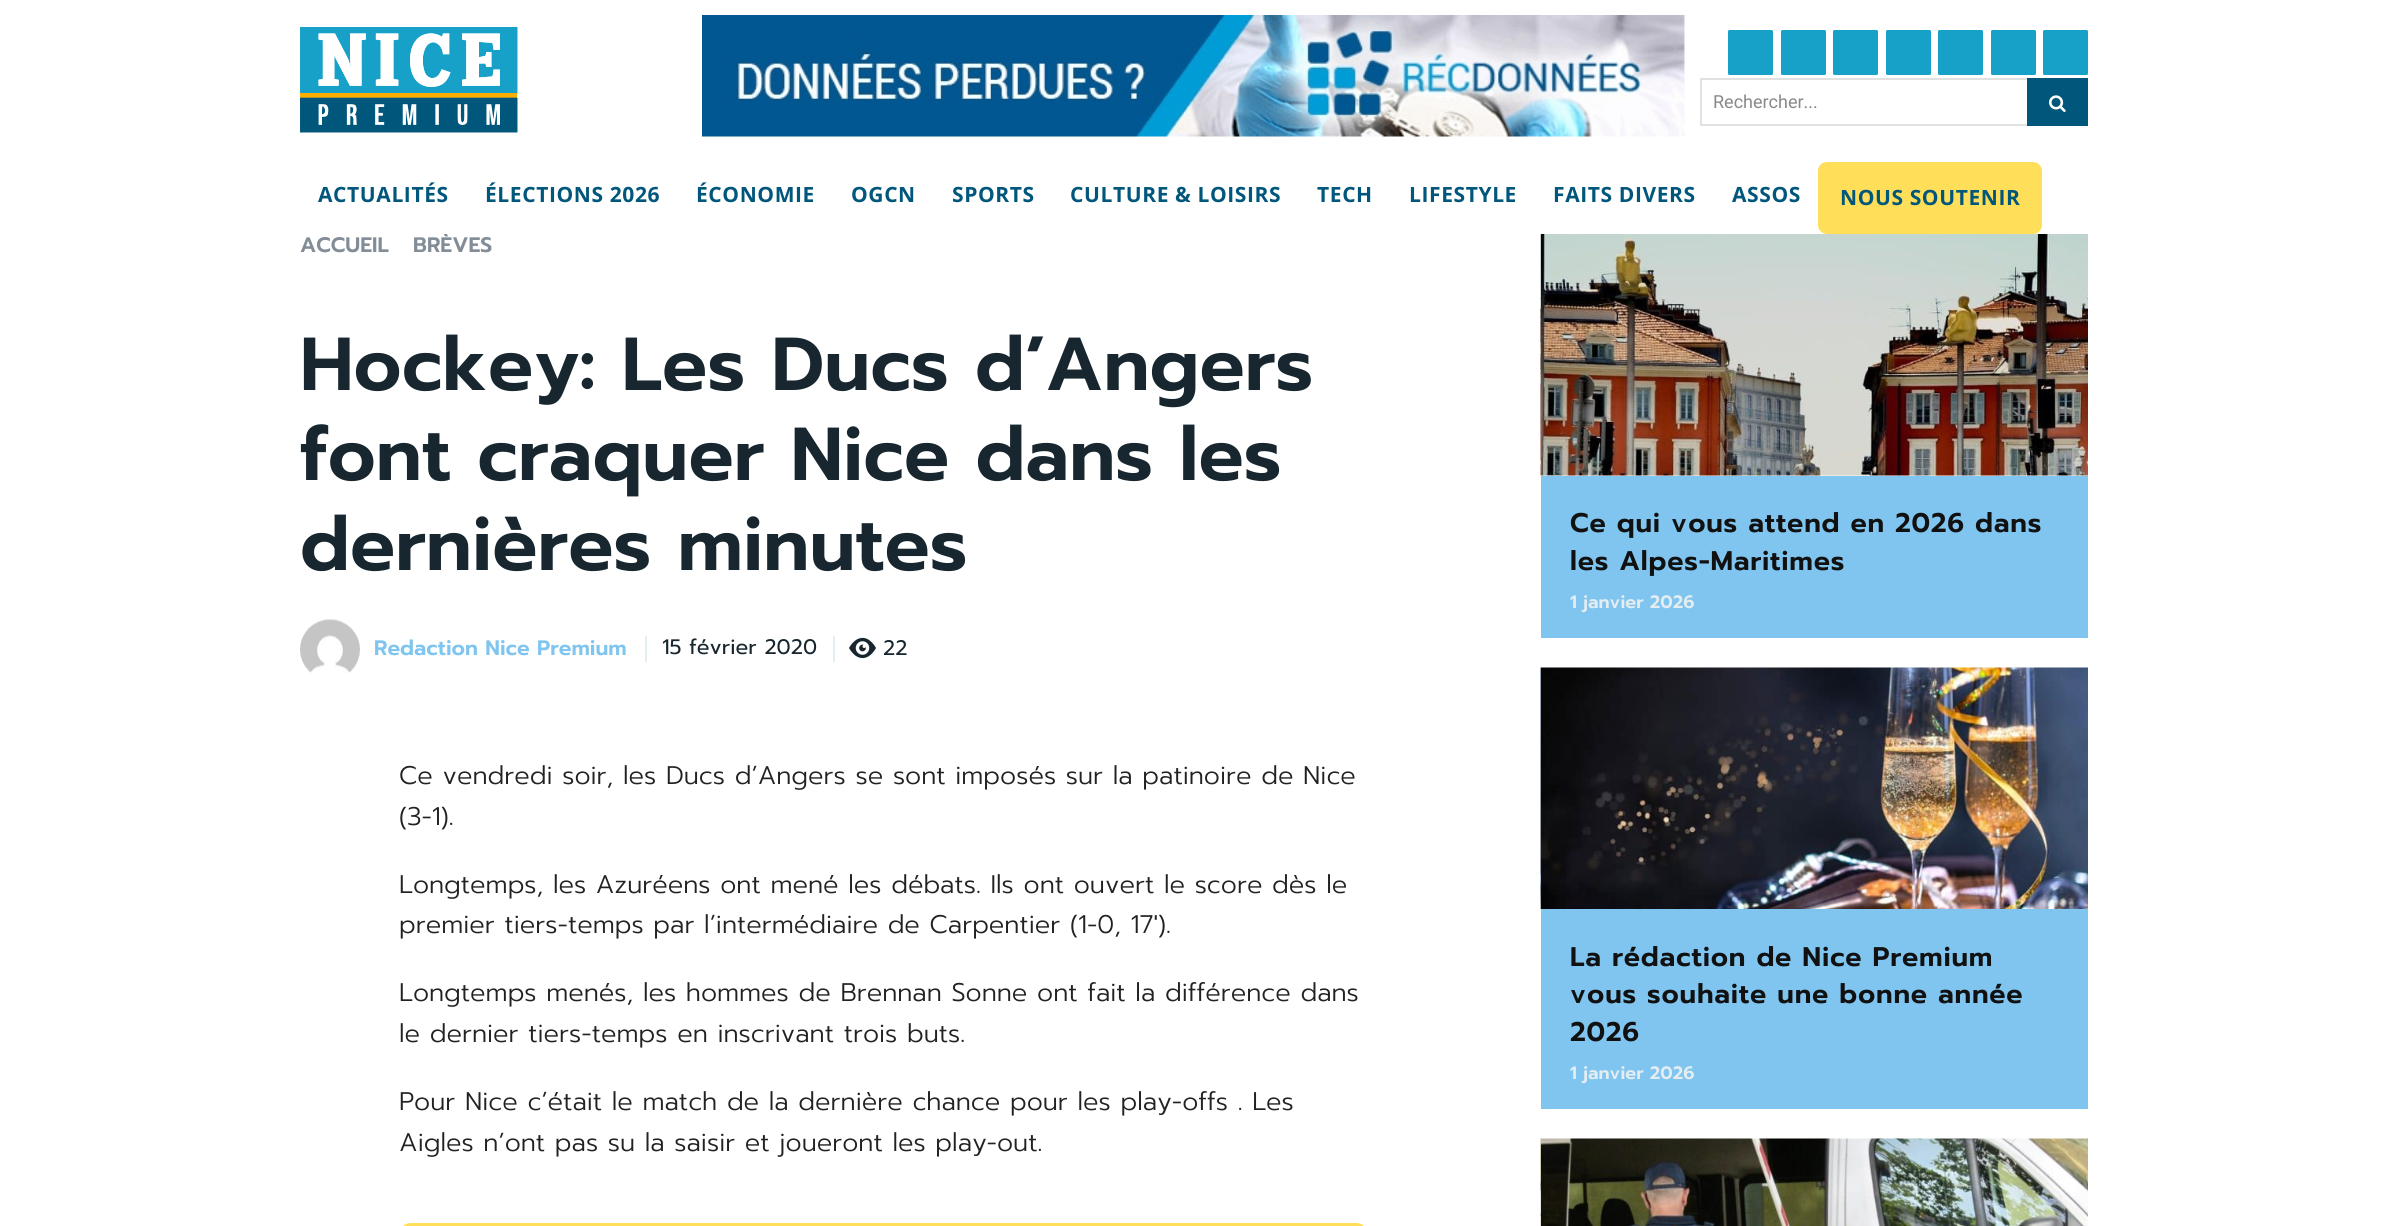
#include <cairo.h>
#include <math.h>
#include <stddef.h>


static void spaced_text(cairo_t *cr, double x, double y, const char *s, double letter, double word) {
    cairo_move_to(cr, x, y);
    while (*s) {
        char ch[5] = {0};
        int n = 0;
        do ch[n++] = *s++; while ((*s & 0xC0) == 0x80);
        cairo_show_text(cr, ch);
        cairo_rel_move_to(cr, letter + word * (*ch == ' '), 0);
    }
}

static void round_rect(cairo_t *cr, double x, double y, double w, double h, double r) {
    cairo_new_sub_path(cr);
    cairo_arc(cr, x + w - r, y + h - r, r, 0, M_PI / 2);
    cairo_arc(cr, x + r, y + h - r, r, M_PI / 2, M_PI);
    cairo_arc(cr, x + r, y + r, r, M_PI, 1.5 * M_PI);
    cairo_arc(cr, x + w - r, y + r, r, 1.5 * M_PI, 2 * M_PI);
    cairo_close_path(cr);
}

static void picture(cairo_t *cr, const char *path, double x, double y, double w, double h) {
    cairo_surface_t *image = cairo_image_surface_create_from_png(path);
    cairo_save(cr);
    cairo_set_source_surface(cr, image, x, y);
    cairo_rectangle(cr, x, y, w, h);
    cairo_fill(cr);
    cairo_restore(cr);
    cairo_surface_destroy(image);
}

int main(void) {
    cairo_surface_t *surface = cairo_image_surface_create(CAIRO_FORMAT_RGB24, 2387, 1226);
    cairo_t *cr = cairo_create(surface);
    cairo_font_options_t *options = cairo_font_options_create();
    cairo_font_options_set_hint_metrics(options, CAIRO_HINT_METRICS_OFF);
    cairo_font_options_set_hint_style(options, CAIRO_HINT_STYLE_NONE);
    cairo_set_font_options(cr, options);
    cairo_set_miter_limit(cr, 4);
    cairo_set_source_rgb(cr, 1, 1, 1);
    cairo_paint(cr);
    picture(cr, "img1.png", 300, 27, 218, 106);
    picture(cr, "img2.png", 702, 15, 983, 122);
    cairo_set_source_rgb(cr, 0.09, 0.631, 0.784);
    round_rect(cr, 1728, 30, 45, 45, 1.5);
    cairo_fill(cr);
    round_rect(cr, 1781, 30, 45, 45, 1.5);
    cairo_fill(cr);
    round_rect(cr, 1833, 30, 45, 45, 1.5);
    cairo_fill(cr);
    round_rect(cr, 1886, 30, 45, 45, 1.5);
    cairo_fill(cr);
    round_rect(cr, 1938, 30, 45, 45, 1.5);
    cairo_fill(cr);
    round_rect(cr, 1991, 30, 45, 45, 1.5);
    cairo_fill(cr);
    round_rect(cr, 2043, 30, 45, 45, 1.5);
    cairo_fill(cr);
    cairo_rectangle(cr, 1701, 79, 386, 46);
    cairo_set_source_rgb(cr, 0.882, 0.882, 0.882);
    cairo_stroke(cr);
    cairo_select_font_face(cr, "Roboto", CAIRO_FONT_SLANT_NORMAL, CAIRO_FONT_WEIGHT_NORMAL);
    cairo_set_font_size(cr, 18);
    cairo_set_source_rgb(cr, 0.537, 0.537, 0.537);
    cairo_move_to(cr, 1713, 108);
    cairo_show_text(cr, "Rechercher...");
    cairo_set_source_rgb(cr, 0.004, 0.337, 0.482);
    cairo_rectangle(cr, 2027, 78, 61, 48);
    cairo_fill(cr);
    picture(cr, "img3.png", 2049, 95, 17, 18);
    cairo_select_font_face(cr, "Open Sans", CAIRO_FONT_SLANT_NORMAL, CAIRO_FONT_WEIGHT_BOLD);
    cairo_set_font_size(cr, 21);
    spaced_text(cr, 318, 202, "ACTUALITÉS", 0.6, 0);
    spaced_text(cr, 485, 202, "ÉLECTIONS 2026", 0.6, 0);
    spaced_text(cr, 696, 202, "ÉCONOMIE", 0.6, 0);
    spaced_text(cr, 851, 202, "OGCN", 0.6, 0);
    spaced_text(cr, 952, 202, "SPORTS", 0.6, 0);
    spaced_text(cr, 1070, 202, "CULTURE & LOISIRS", 0.6, 0);
    spaced_text(cr, 1317, 202, "TECH", 0.6, 0);
    spaced_text(cr, 1409, 202, "LIFESTYLE", 0.6, 0);
    spaced_text(cr, 1553, 202, "FAITS DIVERS", 0.6, 0);
    spaced_text(cr, 1732, 202, "ASSOS", 0.6, 0);
    cairo_set_source_rgb(cr, 1, 0.871, 0.349);
    round_rect(cr, 1819.5, 163.5, 221, 69, 7.5);
    cairo_fill_preserve(cr);
    cairo_set_line_width(cr, 3);
    cairo_stroke(cr);
    cairo_set_source_rgb(cr, 0.004, 0.337, 0.482);
    spaced_text(cr, 1840, 205, "NOUS SOUTENIR", 0.6, 0);
    cairo_select_font_face(cr, "Prompt SemiBold", CAIRO_FONT_SLANT_NORMAL, CAIRO_FONT_WEIGHT_NORMAL);
    cairo_set_source_rgb(cr, 0.51, 0.553, 0.592);
    cairo_move_to(cr, 413, 252);
    cairo_show_text(cr, "BRÈVES");
    cairo_set_source_rgb(cr, 1, 1, 1);
    cairo_rectangle(cr, 443, 232, 5, 2);
    cairo_fill(cr);
    cairo_set_source_rgb(cr, 0.51, 0.553, 0.592);
    cairo_move_to(cr, 300, 252);
    cairo_show_text(cr, "ACCUEIL");
    cairo_set_font_size(cr, 75);
    cairo_set_source_rgb(cr, 0.094, 0.153, 0.184);
    cairo_move_to(cr, 300, 390);
    cairo_show_text(cr, "Hockey: Les Ducs d’Angers");
    cairo_move_to(cr, 300, 480);
    cairo_show_text(cr, "font craquer Nice dans les");
    cairo_move_to(cr, 300, 570);
    cairo_show_text(cr, "dernières minutes");
    picture(cr, "img4.png", 300, 619, 60, 54);
    cairo_set_font_size(cr, 21);
    cairo_set_source_rgb(cr, 0.498, 0.773, 0.937);
    cairo_move_to(cr, 374, 655);
    cairo_show_text(cr, "Redaction Nice Premium");
    cairo_set_source_rgb(cr, 0.894, 0.929, 0.945);
    cairo_rectangle(cr, 833, 636, 2, 26);
    cairo_fill(cr);
    cairo_rectangle(cr, 645, 636, 2, 26);
    cairo_fill(cr);
    cairo_select_font_face(cr, "Prompt", CAIRO_FONT_SLANT_NORMAL, CAIRO_FONT_WEIGHT_NORMAL);
    cairo_set_source_rgb(cr, 0.094, 0.153, 0.184);
    cairo_move_to(cr, 662, 654);
    cairo_show_text(cr, "15 février 2020");
    picture(cr, "img5.png", 849, 637, 27, 22);
    cairo_move_to(cr, 883, 655);
    cairo_show_text(cr, "22");
    cairo_select_font_face(cr, "Prompt Light", CAIRO_FONT_SLANT_NORMAL, CAIRO_FONT_WEIGHT_NORMAL);
    cairo_set_font_size(cr, 25.5);
    cairo_set_source_rgb(cr, 0.133, 0.133, 0.133);
    cairo_move_to(cr, 399, 784);
    cairo_show_text(cr, "Ce vendredi soir, les Ducs d’Angers se sont imposés sur la patinoire de Nice");
    cairo_move_to(cr, 399, 825);
    cairo_show_text(cr, "(3-1).");
    cairo_move_to(cr, 399, 893);
    cairo_show_text(cr, "Longtemps, les Azuréens ont mené les débats. Ils ont ouvert le score dès le");
    cairo_move_to(cr, 399, 933);
    cairo_show_text(cr, "premier tiers-temps par l’intermédiaire de Carpentier (1-0, 17′).");
    cairo_move_to(cr, 399, 1001);
    cairo_show_text(cr, "Longtemps menés, les hommes de Brennan Sonne ont fait la différence dans");
    cairo_move_to(cr, 399, 1042);
    cairo_show_text(cr, "le dernier tiers-temps en inscrivant trois buts.");
    cairo_move_to(cr, 399, 1110);
    cairo_show_text(cr, "Pour Nice c’était le match de la dernière chance pour les play-offs . Les");
    cairo_move_to(cr, 399, 1151);
    cairo_show_text(cr, "Aigles n’ont pas su la saisir et joueront les play-out.");
    round_rect(cr, 400.5, 1224.5, 966, 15, 10.5);
    cairo_set_source_rgb(cr, 1, 0.871, 0.349);
    cairo_stroke(cr);
    picture(cr, "img6.png", 1540, 234, 548, 242);
    cairo_set_source_rgb(cr, 0.498, 0.773, 0.937);
    cairo_rectangle(cr, 1541, 476, 547, 162);
    cairo_fill(cr);
    cairo_select_font_face(cr, "Prompt SemiBold", CAIRO_FONT_SLANT_NORMAL, CAIRO_FONT_WEIGHT_NORMAL);
    cairo_set_font_size(cr, 27);
    cairo_set_source_rgb(cr, 0.067, 0.067, 0.067);
    spaced_text(cr, 1570, 532, "Ce qui vous attend en 2026 dans", 0.75, 0);
    spaced_text(cr, 1570, 570, "les Alpes-Maritimes", 0.75, 0);
    cairo_set_font_size(cr, 18);
    cairo_set_source_rgb(cr, 0.894, 0.929, 0.945);
    cairo_move_to(cr, 1570, 608);
    cairo_show_text(cr, "1 janvier 2026");
    picture(cr, "img7.png", 1540, 667, 548, 242);
    cairo_set_source_rgb(cr, 0.498, 0.773, 0.937);
    cairo_rectangle(cr, 1541, 909, 547, 200);
    cairo_fill(cr);
    cairo_set_font_size(cr, 27);
    cairo_set_source_rgb(cr, 0.067, 0.067, 0.067);
    spaced_text(cr, 1570, 966, "La rédaction de Nice Premium", 0.75, 0);
    spaced_text(cr, 1570, 1003, "vous souhaite une bonne année", 0.75, 0);
    spaced_text(cr, 1570, 1041, "2026", 0.75, 0);
    cairo_set_font_size(cr, 18);
    cairo_set_source_rgb(cr, 0.894, 0.929, 0.945);
    cairo_move_to(cr, 1570, 1079);
    cairo_show_text(cr, "1 janvier 2026");
    picture(cr, "img8.png", 1540, 1138, 548, 88);
    cairo_surface_write_to_png(surface, "page.png");
    cairo_font_options_destroy(options);
    cairo_destroy(cr);
    cairo_surface_destroy(surface);
    return 0;
}
